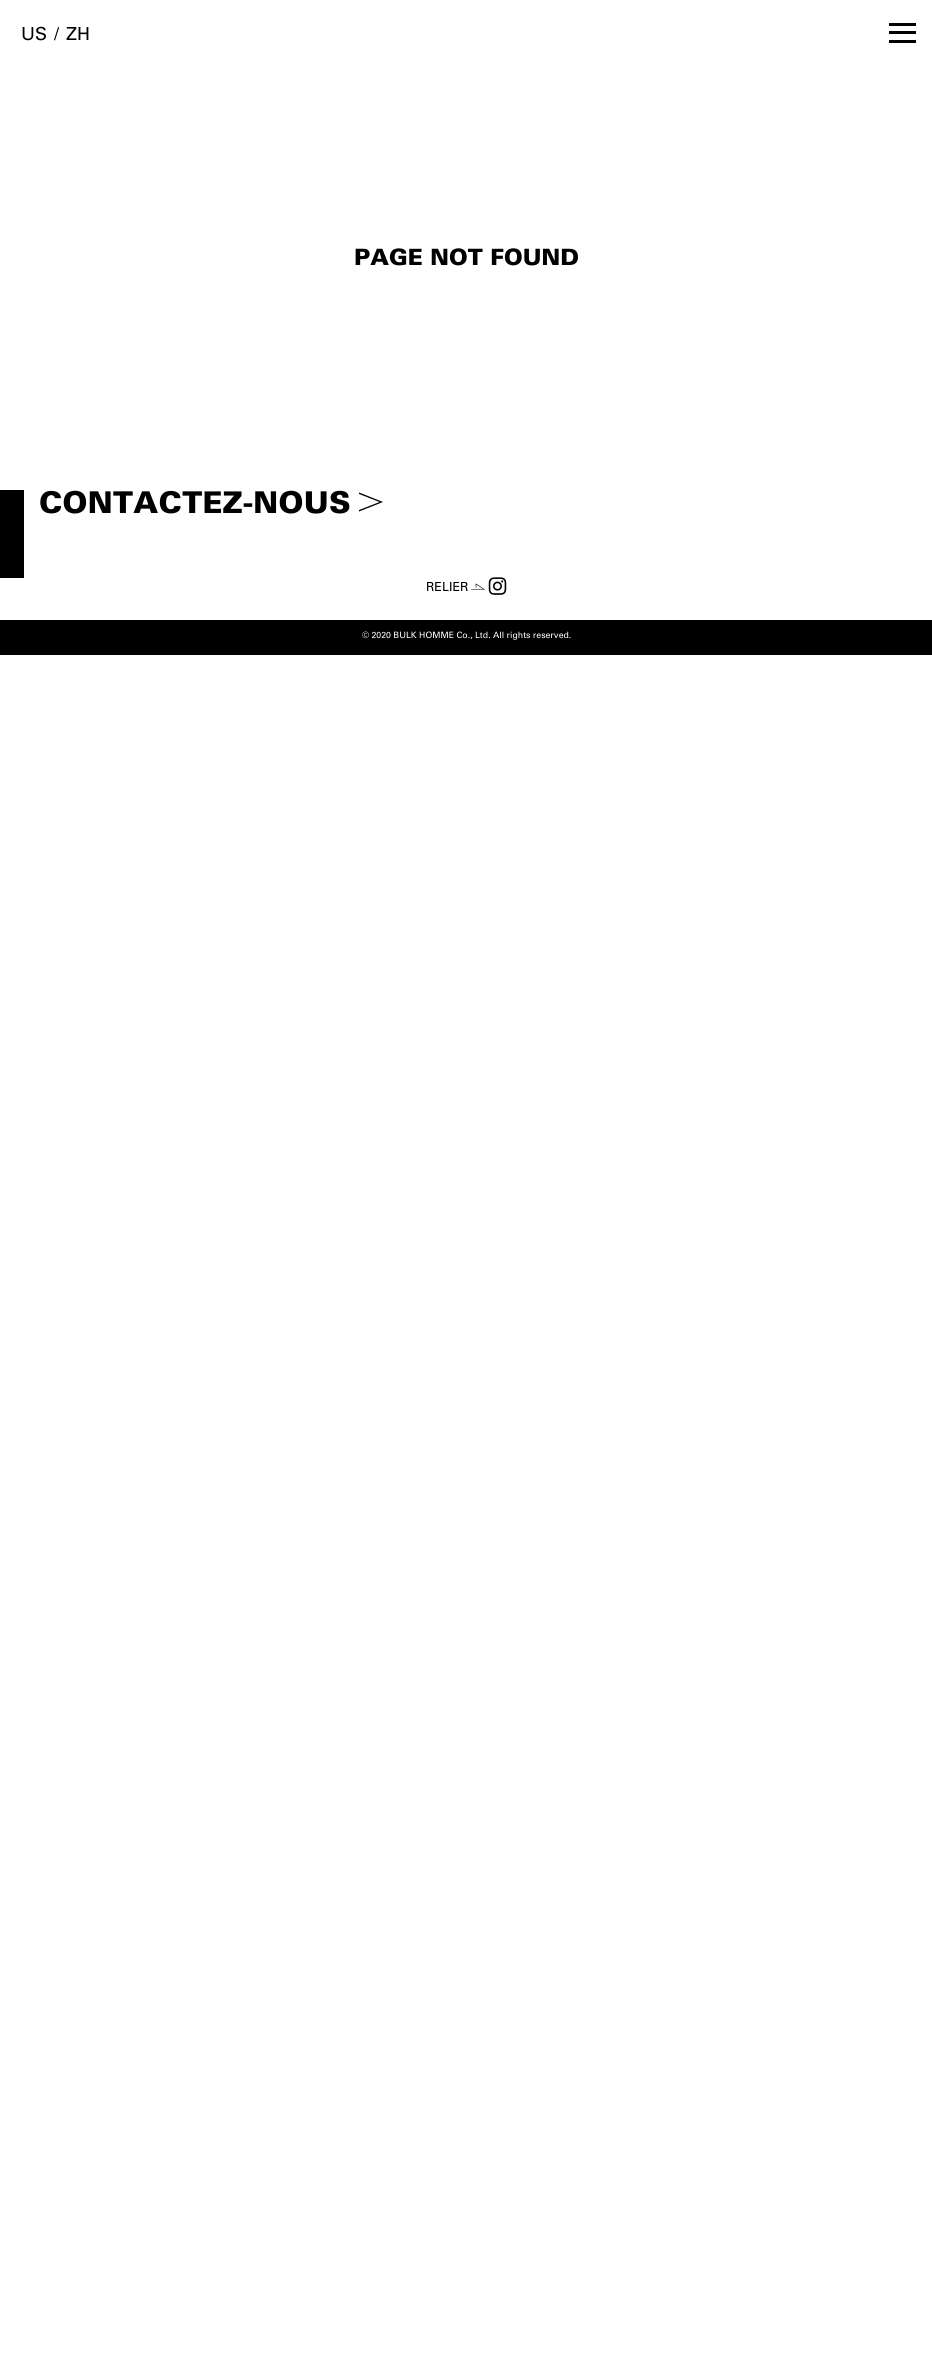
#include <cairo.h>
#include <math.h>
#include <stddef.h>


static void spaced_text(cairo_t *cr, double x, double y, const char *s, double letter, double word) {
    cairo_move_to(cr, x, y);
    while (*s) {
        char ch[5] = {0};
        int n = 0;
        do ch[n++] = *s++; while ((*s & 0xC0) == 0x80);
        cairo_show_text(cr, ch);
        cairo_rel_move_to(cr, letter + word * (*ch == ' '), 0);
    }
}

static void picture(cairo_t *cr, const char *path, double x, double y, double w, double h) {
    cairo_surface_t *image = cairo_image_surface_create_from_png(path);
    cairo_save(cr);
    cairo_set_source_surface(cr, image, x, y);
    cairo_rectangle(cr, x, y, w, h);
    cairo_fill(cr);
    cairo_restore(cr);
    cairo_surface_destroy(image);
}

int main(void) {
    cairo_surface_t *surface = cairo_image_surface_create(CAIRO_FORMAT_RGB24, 932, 2368);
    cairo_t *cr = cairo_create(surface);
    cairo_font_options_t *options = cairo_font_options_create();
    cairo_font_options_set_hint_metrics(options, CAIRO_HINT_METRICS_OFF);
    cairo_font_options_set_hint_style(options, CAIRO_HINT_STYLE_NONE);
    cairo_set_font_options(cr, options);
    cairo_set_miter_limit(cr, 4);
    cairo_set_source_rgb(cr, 1, 1, 1);
    cairo_paint(cr);
    cairo_select_font_face(cr, "Univers", CAIRO_FONT_SLANT_NORMAL, CAIRO_FONT_WEIGHT_NORMAL);
    cairo_set_font_size(cr, 18);
    cairo_set_source_rgb(cr, 0, 0, 0);
    cairo_move_to(cr, 21, 40);
    cairo_show_text(cr, "US");
    cairo_move_to(cr, 54, 40);
    cairo_show_text(cr, "/");
    cairo_move_to(cr, 66, 40);
    cairo_show_text(cr, "ZH");
    cairo_rectangle(cr, 889, 23, 27, 3);
    cairo_fill(cr);
    cairo_rectangle(cr, 889, 31, 27, 3);
    cairo_fill(cr);
    cairo_rectangle(cr, 889, 40, 27, 3);
    cairo_fill(cr);
    cairo_select_font_face(cr, "Univers Black", CAIRO_FONT_SLANT_NORMAL, CAIRO_FONT_WEIGHT_NORMAL);
    cairo_set_font_size(cr, 22.5);
    cairo_move_to(cr, 354, 265);
    cairo_show_text(cr, "PAGE NOT FOUND");
    cairo_rectangle(cr, 0, 490, 24, 88);
    cairo_fill(cr);
    cairo_set_font_size(cr, 30);
    spaced_text(cr, 39, 513, "CONTACTEZ-NOUS", 0.25, 0);
    cairo_new_path(cr);
    cairo_move_to(cr, 379.5, 502);
    cairo_line_to(cr, 359, 510);
    cairo_line_to(cr, 359, 511.5);
    cairo_line_to(cr, 383, 502);
    cairo_line_to(cr, 359, 492.5);
    cairo_line_to(cr, 359, 494);
    cairo_close_path(cr);
    cairo_fill(cr);
    cairo_select_font_face(cr, "Univers", CAIRO_FONT_SLANT_NORMAL, CAIRO_FONT_WEIGHT_NORMAL);
    cairo_set_font_size(cr, 12.5);
    cairo_move_to(cr, 426, 591);
    cairo_show_text(cr, "RELIER");
    picture(cr, "img1.png", 471, 583, 14, 7);
    picture(cr, "img2.png", 488, 577, 19, 18);
    cairo_rectangle(cr, 0, 620, 932, 35);
    cairo_fill(cr);
    cairo_set_font_size(cr, 8.75);
    cairo_set_source_rgb(cr, 1, 1, 1);
    cairo_move_to(cr, 362, 638);
    cairo_show_text(cr, "© 2020 BULK HOMME Co., Ltd. All rights reserved.");
    cairo_surface_write_to_png(surface, "page.png");
    cairo_font_options_destroy(options);
    cairo_destroy(cr);
    cairo_surface_destroy(surface);
    return 0;
}
